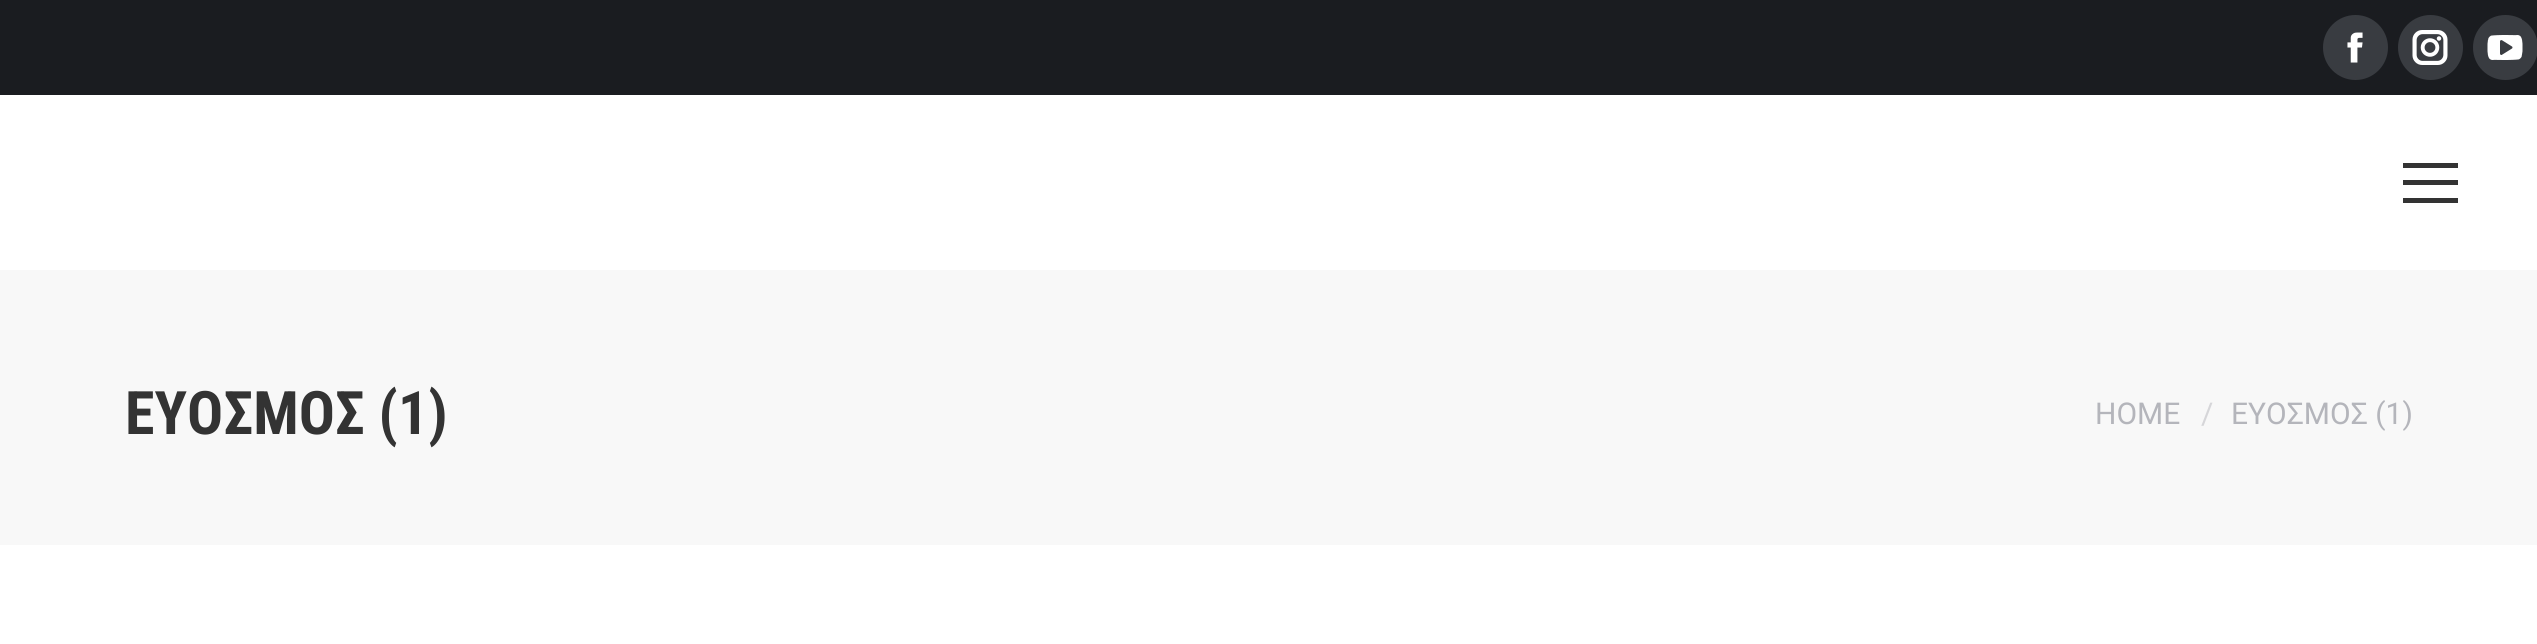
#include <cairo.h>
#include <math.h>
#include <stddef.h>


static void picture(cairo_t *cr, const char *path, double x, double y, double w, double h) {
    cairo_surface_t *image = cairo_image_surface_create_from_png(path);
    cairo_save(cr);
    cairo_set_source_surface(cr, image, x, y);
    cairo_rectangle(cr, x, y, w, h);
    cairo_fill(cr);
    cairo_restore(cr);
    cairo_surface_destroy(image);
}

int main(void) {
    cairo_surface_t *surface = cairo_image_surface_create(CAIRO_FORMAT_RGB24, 2537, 644);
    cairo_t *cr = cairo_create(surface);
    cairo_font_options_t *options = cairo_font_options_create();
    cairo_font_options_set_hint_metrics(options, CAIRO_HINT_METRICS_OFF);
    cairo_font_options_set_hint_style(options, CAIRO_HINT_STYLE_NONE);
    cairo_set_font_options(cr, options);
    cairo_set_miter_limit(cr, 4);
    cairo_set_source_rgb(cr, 1, 1, 1);
    cairo_paint(cr);
    cairo_set_source_rgb(cr, 0.102, 0.11, 0.125);
    cairo_rectangle(cr, 0, 0, 2537, 95);
    cairo_fill(cr);
    cairo_set_source_rgb(cr, 0.224, 0.235, 0.255);
    cairo_arc(cr, 2355.5, 47.5, 32.5, 0, 2 * M_PI);
    cairo_fill(cr);
    picture(cr, "img1.png", 2347, 32, 16, 31);
    cairo_arc(cr, 2430.5, 47.5, 32.5, 0, 2 * M_PI);
    cairo_fill(cr);
    picture(cr, "img2.png", 2412, 30, 36, 35);
    cairo_arc(cr, 2505.5, 47.5, 32.5, 0, 2 * M_PI);
    cairo_fill(cr);
    picture(cr, "img3.png", 2487, 35, 36, 25);
    cairo_set_source_rgb(cr, 0.2, 0.2, 0.2);
    cairo_rectangle(cr, 2403, 163, 55, 5);
    cairo_fill(cr);
    cairo_rectangle(cr, 2403, 180, 55, 5);
    cairo_fill(cr);
    cairo_rectangle(cr, 2403, 198, 55, 5);
    cairo_fill(cr);
    cairo_set_source_rgb(cr, 0.969, 0.969, 0.969);
    cairo_rectangle(cr, 0, 270, 2537, 275);
    cairo_fill(cr);
    cairo_select_font_face(cr, "Roboto Condensed", CAIRO_FONT_SLANT_NORMAL, CAIRO_FONT_WEIGHT_BOLD);
    cairo_set_font_size(cr, 60);
    cairo_set_source_rgb(cr, 0.2, 0.2, 0.2);
    cairo_move_to(cr, 125, 434);
    cairo_show_text(cr, "ΕΥΟΣΜΟΣ (1)");
    cairo_select_font_face(cr, "Roboto", CAIRO_FONT_SLANT_NORMAL, CAIRO_FONT_WEIGHT_NORMAL);
    cairo_set_font_size(cr, 30);
    cairo_set_source_rgb(cr, 0.706, 0.71, 0.733);
    cairo_move_to(cr, 2095, 424);
    cairo_show_text(cr, "HOME");
    cairo_set_source_rgb(cr, 0.839, 0.839, 0.851);
    cairo_move_to(cr, 2201, 424);
    cairo_show_text(cr, "/");
    cairo_set_source_rgb(cr, 0.706, 0.71, 0.733);
    cairo_move_to(cr, 2231, 424);
    cairo_show_text(cr, "ΕΥΟΣΜΟΣ (1)");
    cairo_surface_write_to_png(surface, "page.png");
    cairo_font_options_destroy(options);
    cairo_destroy(cr);
    cairo_surface_destroy(surface);
    return 0;
}
